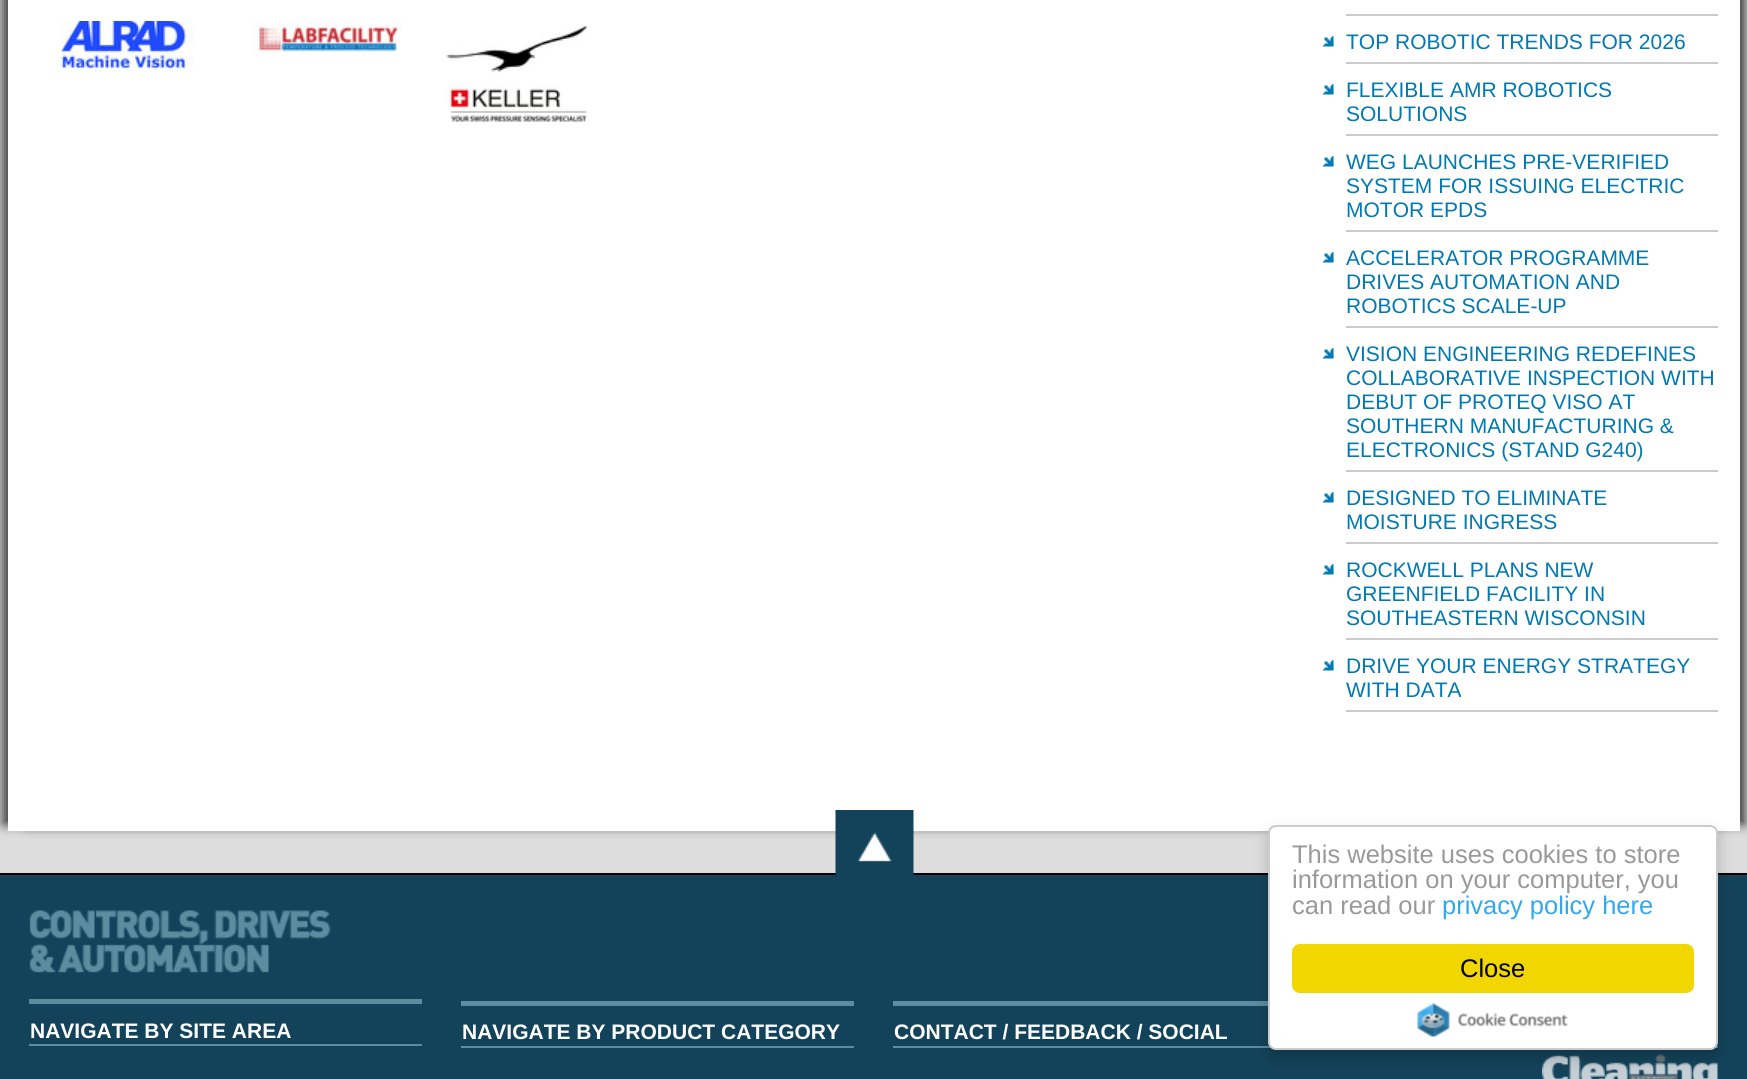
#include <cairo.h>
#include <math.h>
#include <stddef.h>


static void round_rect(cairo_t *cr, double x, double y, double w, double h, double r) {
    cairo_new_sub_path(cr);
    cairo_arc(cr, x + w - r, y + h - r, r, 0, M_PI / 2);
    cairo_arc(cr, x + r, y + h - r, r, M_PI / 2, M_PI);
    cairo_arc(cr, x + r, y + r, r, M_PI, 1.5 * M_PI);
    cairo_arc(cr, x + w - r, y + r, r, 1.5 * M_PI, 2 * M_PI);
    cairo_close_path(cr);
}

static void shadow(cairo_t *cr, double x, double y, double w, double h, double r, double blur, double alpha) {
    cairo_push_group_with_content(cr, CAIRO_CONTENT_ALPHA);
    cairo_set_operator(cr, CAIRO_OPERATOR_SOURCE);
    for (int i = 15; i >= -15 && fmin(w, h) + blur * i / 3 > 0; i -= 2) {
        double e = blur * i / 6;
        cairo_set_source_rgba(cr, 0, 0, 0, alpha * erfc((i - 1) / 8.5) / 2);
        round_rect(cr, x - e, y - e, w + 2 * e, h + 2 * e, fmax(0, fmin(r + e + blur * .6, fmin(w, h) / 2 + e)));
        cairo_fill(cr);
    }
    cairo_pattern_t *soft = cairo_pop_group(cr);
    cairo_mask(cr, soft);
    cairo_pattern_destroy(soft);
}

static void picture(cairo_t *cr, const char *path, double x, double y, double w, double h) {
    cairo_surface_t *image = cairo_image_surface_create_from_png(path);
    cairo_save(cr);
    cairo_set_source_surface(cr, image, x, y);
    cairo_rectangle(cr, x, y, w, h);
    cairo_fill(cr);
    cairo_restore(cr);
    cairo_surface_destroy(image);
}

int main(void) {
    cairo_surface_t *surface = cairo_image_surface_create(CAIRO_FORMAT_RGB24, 1747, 1079);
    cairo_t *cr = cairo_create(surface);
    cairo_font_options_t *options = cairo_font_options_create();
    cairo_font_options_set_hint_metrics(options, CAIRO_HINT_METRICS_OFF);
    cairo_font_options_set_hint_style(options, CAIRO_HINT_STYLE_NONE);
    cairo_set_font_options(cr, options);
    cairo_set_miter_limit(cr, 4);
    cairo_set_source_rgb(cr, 0.867, 0.867, 0.867);
    cairo_paint(cr);
    cairo_set_source_rgb(cr, 0.2, 0.2, 0.2);
    shadow(cr, 3, -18, 1718, 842, 0, 6, 1);
    shadow(cr, 27, -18, 1718, 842, 0, 6, 1);
    cairo_set_source_rgb(cr, 1, 1, 1);
    cairo_rectangle(cr, 8, 0, 1732, 831);
    cairo_fill(cr);
    picture(cr, "img1.png", 61, 21, 133, 49);
    picture(cr, "img2.png", 252, 21, 150, 36);
    picture(cr, "img3.png", 446, 25, 141, 97);
    cairo_set_source_rgb(cr, 0.8, 0.8, 0.8);
    cairo_rectangle(cr, 1346, 14, 372, 2);
    cairo_fill(cr);
    cairo_rectangle(cr, 1346, 62, 372, 2);
    cairo_fill(cr);
    picture(cr, "img4.png", 1322, 35, 12, 12);
    cairo_select_font_face(cr, "Liberation Sans", CAIRO_FONT_SLANT_NORMAL, CAIRO_FONT_WEIGHT_NORMAL);
    cairo_set_font_size(cr, 21);
    cairo_set_source_rgb(cr, 0, 0.471, 0.698);
    cairo_move_to(cr, 1346, 49);
    cairo_show_text(cr, "TOP ROBOTIC TRENDS FOR 2026");
    cairo_set_source_rgb(cr, 0.8, 0.8, 0.8);
    cairo_rectangle(cr, 1346, 134, 372, 2);
    cairo_fill(cr);
    picture(cr, "img4.png", 1322, 83, 12, 12);
    cairo_set_source_rgb(cr, 0, 0.471, 0.698);
    cairo_move_to(cr, 1346, 97);
    cairo_show_text(cr, "FLEXIBLE AMR ROBOTICS");
    cairo_move_to(cr, 1346, 121);
    cairo_show_text(cr, "SOLUTIONS");
    cairo_set_source_rgb(cr, 0.8, 0.8, 0.8);
    cairo_rectangle(cr, 1346, 230, 372, 2);
    cairo_fill(cr);
    picture(cr, "img4.png", 1322, 155, 12, 12);
    cairo_set_source_rgb(cr, 0, 0.471, 0.698);
    cairo_move_to(cr, 1346, 169);
    cairo_show_text(cr, "WEG LAUNCHES PRE-VERIFIED");
    cairo_move_to(cr, 1346, 193);
    cairo_show_text(cr, "SYSTEM FOR ISSUING ELECTRIC");
    cairo_move_to(cr, 1346, 217);
    cairo_show_text(cr, "MOTOR EPDS");
    cairo_set_source_rgb(cr, 0.8, 0.8, 0.8);
    cairo_rectangle(cr, 1346, 326, 372, 2);
    cairo_fill(cr);
    picture(cr, "img4.png", 1322, 251, 12, 12);
    cairo_set_source_rgb(cr, 0, 0.471, 0.698);
    cairo_move_to(cr, 1346, 265);
    cairo_show_text(cr, "ACCELERATOR PROGRAMME");
    cairo_move_to(cr, 1346, 289);
    cairo_show_text(cr, "DRIVES AUTOMATION AND");
    cairo_move_to(cr, 1346, 313);
    cairo_show_text(cr, "ROBOTICS SCALE-UP");
    cairo_set_source_rgb(cr, 0.8, 0.8, 0.8);
    cairo_rectangle(cr, 1346, 470, 372, 2);
    cairo_fill(cr);
    picture(cr, "img4.png", 1322, 347, 12, 12);
    cairo_set_source_rgb(cr, 0, 0.471, 0.698);
    cairo_move_to(cr, 1346, 361);
    cairo_show_text(cr, "VISION ENGINEERING REDEFINES");
    cairo_move_to(cr, 1346, 385);
    cairo_show_text(cr, "COLLABORATIVE INSPECTION WITH");
    cairo_move_to(cr, 1346, 409);
    cairo_show_text(cr, "DEBUT OF PROTEQ VISO AT");
    cairo_move_to(cr, 1346, 433);
    cairo_show_text(cr, "SOUTHERN MANUFACTURING &");
    cairo_move_to(cr, 1346, 457);
    cairo_show_text(cr, "ELECTRONICS (STAND G240)");
    cairo_set_source_rgb(cr, 0.8, 0.8, 0.8);
    cairo_rectangle(cr, 1346, 542, 372, 2);
    cairo_fill(cr);
    picture(cr, "img4.png", 1322, 491, 12, 12);
    cairo_set_source_rgb(cr, 0, 0.471, 0.698);
    cairo_move_to(cr, 1346, 505);
    cairo_show_text(cr, "DESIGNED TO ELIMINATE");
    cairo_move_to(cr, 1346, 529);
    cairo_show_text(cr, "MOISTURE INGRESS");
    cairo_set_source_rgb(cr, 0.8, 0.8, 0.8);
    cairo_rectangle(cr, 1346, 638, 372, 2);
    cairo_fill(cr);
    picture(cr, "img4.png", 1322, 563, 12, 12);
    cairo_set_source_rgb(cr, 0, 0.471, 0.698);
    cairo_move_to(cr, 1346, 577);
    cairo_show_text(cr, "ROCKWELL PLANS NEW");
    cairo_move_to(cr, 1346, 601);
    cairo_show_text(cr, "GREENFIELD FACILITY IN");
    cairo_move_to(cr, 1346, 625);
    cairo_show_text(cr, "SOUTHEASTERN WISCONSIN");
    cairo_set_source_rgb(cr, 0.8, 0.8, 0.8);
    cairo_rectangle(cr, 1346, 710, 372, 2);
    cairo_fill(cr);
    picture(cr, "img4.png", 1322, 659, 12, 12);
    cairo_set_source_rgb(cr, 0, 0.471, 0.698);
    cairo_move_to(cr, 1346, 673);
    cairo_show_text(cr, "DRIVE YOUR ENERGY STRATEGY");
    cairo_move_to(cr, 1346, 697);
    cairo_show_text(cr, "WITH DATA");
    cairo_set_source_rgb(cr, 0, 0, 0);
    cairo_rectangle(cr, 0, 873, 1747, 2);
    cairo_fill(cr);
    picture(cr, "img5.png", 835, 810, 79, 65);
    cairo_set_source_rgb(cr, 0.075, 0.263, 0.353);
    cairo_rectangle(cr, 0, 875, 1747, 204);
    cairo_fill(cr);
    cairo_set_source_rgb(cr, 0.357, 0.549, 0.624);
    cairo_rectangle(cr, 893, 1001, 375, 5);
    cairo_fill(cr);
    cairo_rectangle(cr, 893, 1046, 378, 2);
    cairo_fill(cr);
    cairo_rectangle(cr, 1715, 1046, 3, 2);
    cairo_fill(cr);
    picture(cr, "img8.png", 1542, 1054, 176, 25);
    cairo_set_source_rgb(cr, 0, 0, 0);
    shadow(cr, 1268, 833, 450, 225, 8, 7.5, 0.2);
    cairo_set_source_rgb(cr, 1, 1, 1);
    round_rect(cr, 1269, 826, 448, 223, 7);
    cairo_fill_preserve(cr);
    cairo_set_source_rgb(cr, 0.8, 0.8, 0.8);
    cairo_stroke(cr);
    cairo_set_font_size(cr, 25.5);
    cairo_set_source_rgb(cr, 0.6, 0.6, 0.6);
    cairo_move_to(cr, 1292, 863);
    cairo_show_text(cr, "This website uses cookies to store");
    cairo_move_to(cr, 1292, 888);
    cairo_show_text(cr, "information on your computer, you");
    cairo_move_to(cr, 1292, 914);
    cairo_show_text(cr, "can read our");
    cairo_set_source_rgb(cr, 0.192, 0.659, 0.941);
    cairo_move_to(cr, 1442, 914);
    cairo_show_text(cr, "privacy policy here");
    cairo_set_source_rgb(cr, 0.945, 0.839, 0);
    round_rect(cr, 1292, 944, 402, 49, 8);
    cairo_fill(cr);
    cairo_set_source_rgb(cr, 0, 0, 0);
    cairo_move_to(cr, 1460, 977);
    cairo_show_text(cr, "Close");
    picture(cr, "img6.png", 1417, 1003, 151, 34);
    picture(cr, "img7.png", 29, 910, 302, 63);
    cairo_set_source_rgb(cr, 0.357, 0.549, 0.624);
    cairo_rectangle(cr, 29, 999, 393, 5);
    cairo_fill(cr);
    cairo_rectangle(cr, 29, 1044, 393, 2);
    cairo_fill(cr);
    cairo_select_font_face(cr, "Liberation Sans", CAIRO_FONT_SLANT_NORMAL, CAIRO_FONT_WEIGHT_BOLD);
    cairo_set_font_size(cr, 21);
    cairo_set_source_rgb(cr, 1, 1, 1);
    cairo_move_to(cr, 30, 1038);
    cairo_show_text(cr, "NAVIGATE BY SITE AREA");
    cairo_set_source_rgb(cr, 0.357, 0.549, 0.624);
    cairo_rectangle(cr, 461, 1001, 393, 5);
    cairo_fill(cr);
    cairo_rectangle(cr, 461, 1046, 393, 2);
    cairo_fill(cr);
    cairo_set_source_rgb(cr, 1, 1, 1);
    cairo_move_to(cr, 462, 1039);
    cairo_show_text(cr, "NAVIGATE BY PRODUCT CATEGORY");
    cairo_move_to(cr, 894, 1039);
    cairo_show_text(cr, "CONTACT / FEEDBACK / SOCIAL");
    cairo_surface_write_to_png(surface, "page.png");
    cairo_font_options_destroy(options);
    cairo_destroy(cr);
    cairo_surface_destroy(surface);
    return 0;
}
